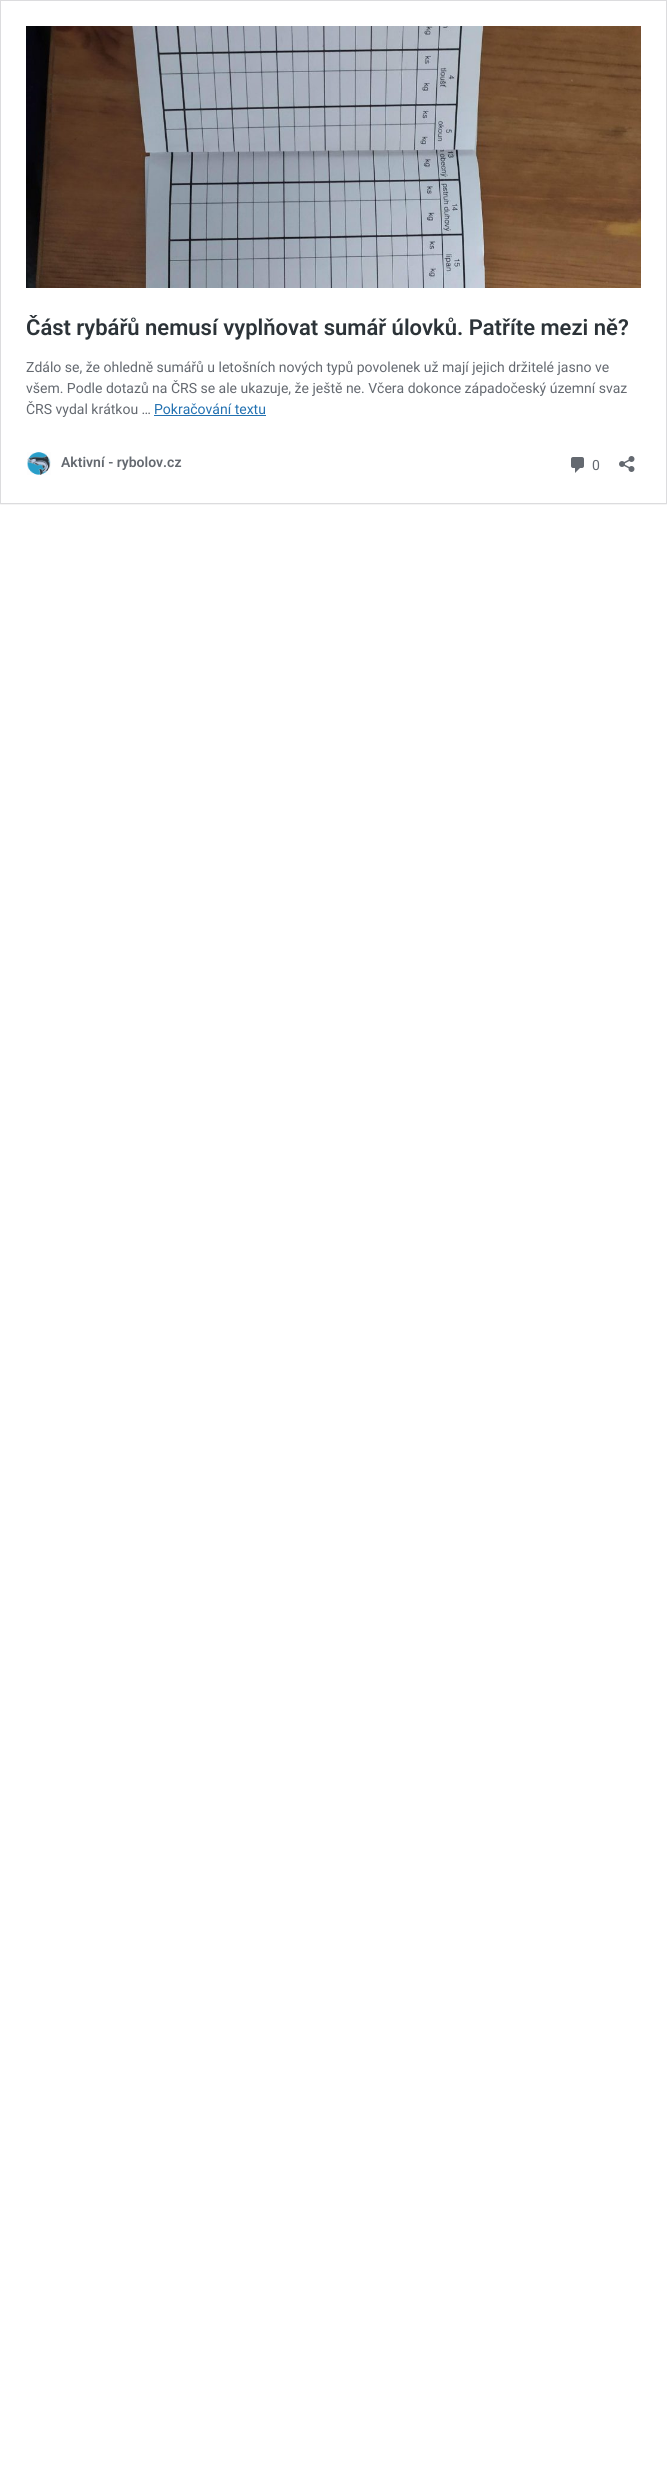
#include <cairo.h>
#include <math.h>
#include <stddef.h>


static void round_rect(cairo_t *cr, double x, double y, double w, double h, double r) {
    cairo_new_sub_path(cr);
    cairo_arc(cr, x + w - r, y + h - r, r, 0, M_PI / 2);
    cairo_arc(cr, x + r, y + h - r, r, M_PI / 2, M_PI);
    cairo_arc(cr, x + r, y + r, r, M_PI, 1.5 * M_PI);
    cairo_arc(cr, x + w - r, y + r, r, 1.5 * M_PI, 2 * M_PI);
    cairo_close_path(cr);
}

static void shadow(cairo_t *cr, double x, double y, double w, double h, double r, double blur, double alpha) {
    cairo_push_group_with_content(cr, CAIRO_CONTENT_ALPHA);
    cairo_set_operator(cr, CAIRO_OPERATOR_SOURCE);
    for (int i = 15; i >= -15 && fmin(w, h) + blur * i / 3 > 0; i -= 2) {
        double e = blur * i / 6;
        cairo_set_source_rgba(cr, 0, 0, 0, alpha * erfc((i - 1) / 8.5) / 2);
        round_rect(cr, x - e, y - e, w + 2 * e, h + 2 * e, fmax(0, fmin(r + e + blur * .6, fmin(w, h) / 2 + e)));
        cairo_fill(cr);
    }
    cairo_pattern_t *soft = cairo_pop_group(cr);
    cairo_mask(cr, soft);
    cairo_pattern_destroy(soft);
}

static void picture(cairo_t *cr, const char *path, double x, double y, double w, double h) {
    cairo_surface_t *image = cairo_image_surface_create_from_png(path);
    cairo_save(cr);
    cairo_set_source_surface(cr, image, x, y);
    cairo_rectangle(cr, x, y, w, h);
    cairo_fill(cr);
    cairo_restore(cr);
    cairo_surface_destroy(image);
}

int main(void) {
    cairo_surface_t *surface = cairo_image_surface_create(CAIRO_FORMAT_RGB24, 667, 2483);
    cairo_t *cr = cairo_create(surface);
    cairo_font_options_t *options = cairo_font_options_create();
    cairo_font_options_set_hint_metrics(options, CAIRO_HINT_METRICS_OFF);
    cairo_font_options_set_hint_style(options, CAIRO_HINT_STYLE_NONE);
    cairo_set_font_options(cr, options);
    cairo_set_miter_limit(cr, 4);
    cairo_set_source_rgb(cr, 1, 1, 1);
    cairo_paint(cr);
    cairo_save(cr);
    cairo_rectangle(cr, 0, 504, 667, 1);
    cairo_clip(cr);
    cairo_set_source_rgb(cr, 0, 0, 0);
    shadow(cr, 0, 1, 667, 504, 0, 0.5, 0.05);
    cairo_restore(cr);
    cairo_rectangle(cr, 0.5, 0.5, 666, 503);
    cairo_set_source_rgb(cr, 0.863, 0.863, 0.871);
    cairo_set_line_width(cr, 1);
    cairo_stroke(cr);
    picture(cr, "img1.png", 26, 26, 615, 262);
    cairo_select_font_face(cr, "Roboto SemiBold", CAIRO_FONT_SLANT_NORMAL, CAIRO_FONT_WEIGHT_NORMAL);
    cairo_set_font_size(cr, 22);
    cairo_set_source_rgb(cr, 0.173, 0.2, 0.22);
    cairo_move_to(cr, 26, 335);
    cairo_show_text(cr, "Část rybářů nemusí vyplňovat sumář úlovků. Patříte mezi ně?");
    cairo_select_font_face(cr, "Roboto", CAIRO_FONT_SLANT_NORMAL, CAIRO_FONT_WEIGHT_NORMAL);
    cairo_set_font_size(cr, 14);
    cairo_set_source_rgb(cr, 0.392, 0.412, 0.439);
    cairo_move_to(cr, 26, 372);
    cairo_show_text(cr, "Zdálo se, že ohledně sumářů u letošních nových typů povolenek už mají jejich držitelé jasno ve");
    cairo_move_to(cr, 26, 393);
    cairo_show_text(cr, "všem. Podle dotazů na ČRS se ale ukazuje, že ještě ne. Včera dokonce západočeský územní svaz");
    cairo_move_to(cr, 26, 414);
    cairo_show_text(cr, "ČRS vydal krátkou …");
    cairo_set_source_rgb(cr, 0.133, 0.443, 0.694);
    cairo_move_to(cr, 154, 414);
    cairo_show_text(cr, "Pokračování textu");
    cairo_rectangle(cr, 154, 415, 112, 1);
    cairo_fill(cr);
    picture(cr, "img2.png", 27, 452, 24, 23);
    cairo_select_font_face(cr, "Roboto SemiBold", CAIRO_FONT_SLANT_NORMAL, CAIRO_FONT_WEIGHT_NORMAL);
    cairo_set_source_rgb(cr, 0.392, 0.412, 0.439);
    cairo_move_to(cr, 61, 467);
    cairo_show_text(cr, "Aktivní - rybolov.cz");
    picture(cr, "img3.png", 571, 457, 13, 16);
    cairo_select_font_face(cr, "Roboto", CAIRO_FONT_SLANT_NORMAL, CAIRO_FONT_WEIGHT_NORMAL);
    cairo_move_to(cr, 592, 470);
    cairo_show_text(cr, "0");
    picture(cr, "img4.png", 619, 456, 16, 16);
    cairo_surface_write_to_png(surface, "page.png");
    cairo_font_options_destroy(options);
    cairo_destroy(cr);
    cairo_surface_destroy(surface);
    return 0;
}
